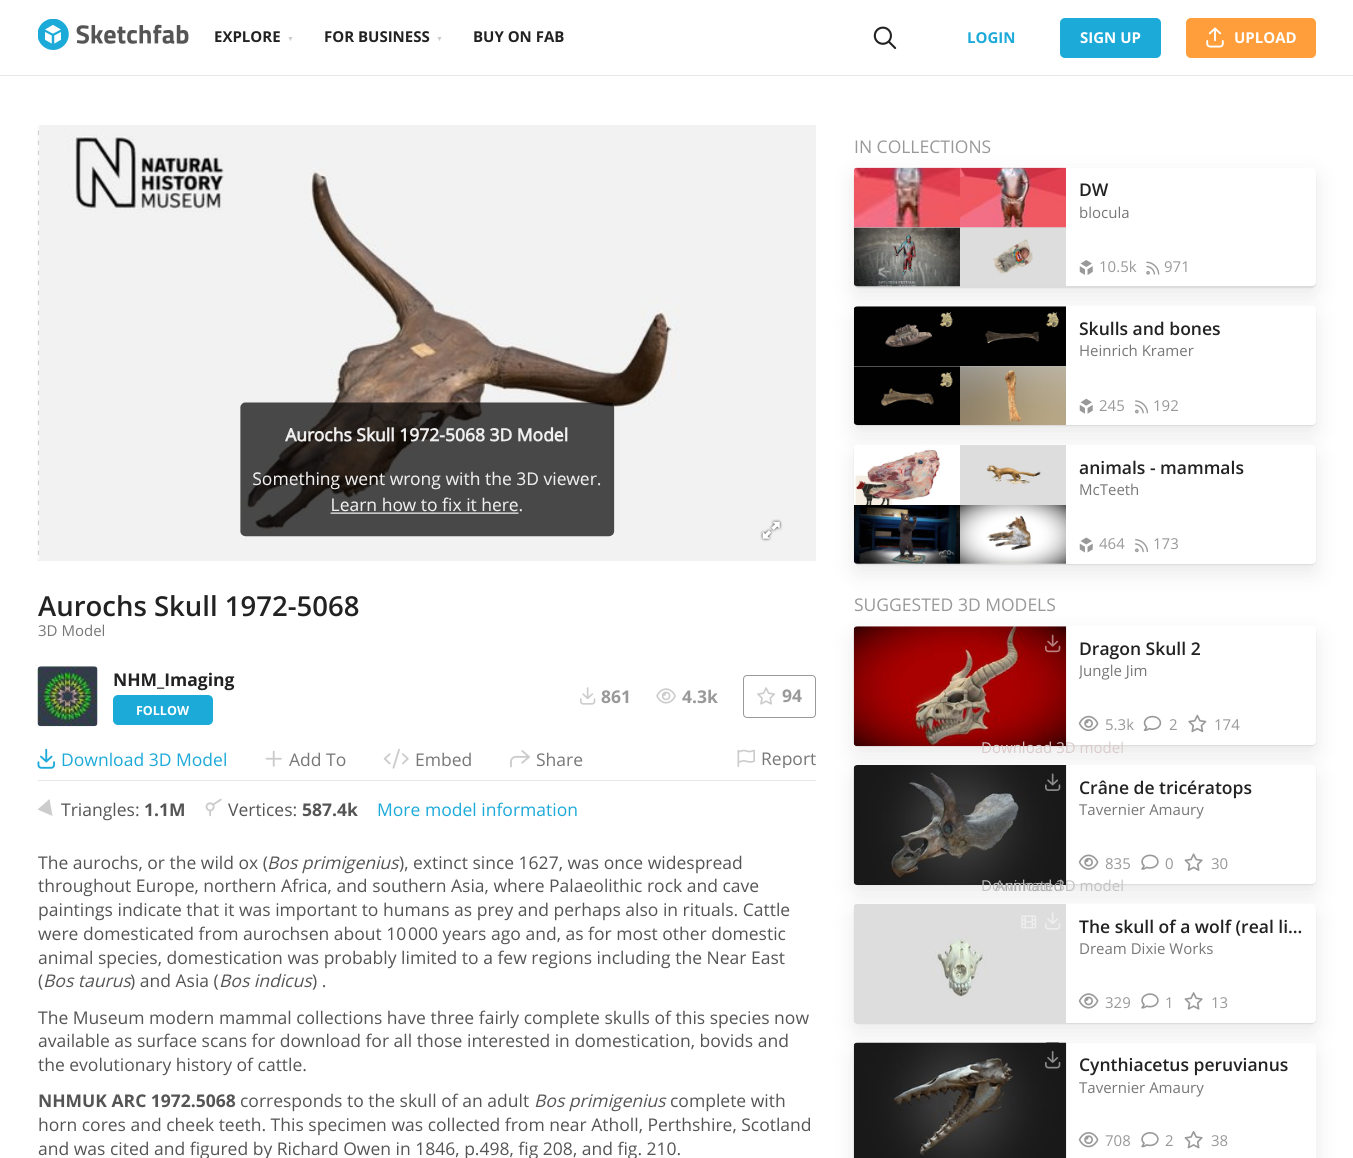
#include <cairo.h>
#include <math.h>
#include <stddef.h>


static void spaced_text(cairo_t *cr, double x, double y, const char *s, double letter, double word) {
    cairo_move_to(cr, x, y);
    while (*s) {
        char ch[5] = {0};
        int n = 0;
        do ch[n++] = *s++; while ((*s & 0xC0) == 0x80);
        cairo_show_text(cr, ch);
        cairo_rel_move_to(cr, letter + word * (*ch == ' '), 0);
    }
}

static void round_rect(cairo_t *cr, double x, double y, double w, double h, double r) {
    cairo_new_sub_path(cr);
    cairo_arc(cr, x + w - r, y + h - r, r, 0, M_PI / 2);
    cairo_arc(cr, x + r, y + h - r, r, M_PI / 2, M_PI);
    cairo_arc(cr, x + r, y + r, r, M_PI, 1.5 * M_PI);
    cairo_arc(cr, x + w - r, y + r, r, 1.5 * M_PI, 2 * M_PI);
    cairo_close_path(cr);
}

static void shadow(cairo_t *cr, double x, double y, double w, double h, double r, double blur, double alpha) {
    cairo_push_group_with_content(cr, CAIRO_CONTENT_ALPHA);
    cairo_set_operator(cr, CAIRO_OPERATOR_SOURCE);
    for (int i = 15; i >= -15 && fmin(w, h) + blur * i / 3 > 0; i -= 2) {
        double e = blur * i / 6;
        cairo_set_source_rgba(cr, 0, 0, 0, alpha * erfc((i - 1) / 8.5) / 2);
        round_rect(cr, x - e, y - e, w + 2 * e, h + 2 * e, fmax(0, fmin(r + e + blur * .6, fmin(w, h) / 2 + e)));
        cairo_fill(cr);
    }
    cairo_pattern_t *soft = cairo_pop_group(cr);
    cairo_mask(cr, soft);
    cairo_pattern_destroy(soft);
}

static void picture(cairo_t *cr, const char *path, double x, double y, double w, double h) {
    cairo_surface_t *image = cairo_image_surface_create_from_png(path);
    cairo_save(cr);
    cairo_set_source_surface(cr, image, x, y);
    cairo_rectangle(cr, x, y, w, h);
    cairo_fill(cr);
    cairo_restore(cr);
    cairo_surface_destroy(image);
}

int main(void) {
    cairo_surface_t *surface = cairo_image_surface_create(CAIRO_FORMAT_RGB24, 1353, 1158);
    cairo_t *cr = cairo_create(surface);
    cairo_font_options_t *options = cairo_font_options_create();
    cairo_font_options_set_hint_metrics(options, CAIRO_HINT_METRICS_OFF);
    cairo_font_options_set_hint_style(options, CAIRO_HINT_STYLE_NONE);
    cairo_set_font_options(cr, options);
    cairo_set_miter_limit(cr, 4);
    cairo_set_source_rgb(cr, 1, 1, 1);
    cairo_paint(cr);
    cairo_set_source_rgb(cr, 0.906, 0.906, 0.906);
    cairo_rectangle(cr, 0, 75, 1353, 1);
    cairo_fill(cr);
    picture(cr, "img1.png", 38, 19, 151, 31);
    cairo_select_font_face(cr, "Open Sans", CAIRO_FONT_SLANT_NORMAL, CAIRO_FONT_WEIGHT_BOLD);
    cairo_set_font_size(cr, 15);
    cairo_set_source_rgb(cr, 0.133, 0.133, 0.133);
    cairo_move_to(cr, 214, 42);
    cairo_show_text(cr, "EXPLORE");
    cairo_select_font_face(cr, "Liberation Sans", CAIRO_FONT_SLANT_NORMAL, CAIRO_FONT_WEIGHT_NORMAL);
    cairo_set_font_size(cr, 7);
    cairo_set_source_rgb(cr, 0.8, 0.8, 0.8);
    spaced_text(cr, 287, 41, "▼", 6, 0);
    cairo_select_font_face(cr, "Open Sans", CAIRO_FONT_SLANT_NORMAL, CAIRO_FONT_WEIGHT_BOLD);
    cairo_set_font_size(cr, 15);
    cairo_set_source_rgb(cr, 0.133, 0.133, 0.133);
    cairo_move_to(cr, 324, 42);
    cairo_show_text(cr, "FOR BUSINESS");
    cairo_select_font_face(cr, "Liberation Sans", CAIRO_FONT_SLANT_NORMAL, CAIRO_FONT_WEIGHT_NORMAL);
    cairo_set_font_size(cr, 7);
    cairo_set_source_rgb(cr, 0.8, 0.8, 0.8);
    spaced_text(cr, 436, 41, "▼", 6, 0);
    cairo_select_font_face(cr, "Open Sans", CAIRO_FONT_SLANT_NORMAL, CAIRO_FONT_WEIGHT_BOLD);
    cairo_set_font_size(cr, 15);
    cairo_set_source_rgb(cr, 0.133, 0.133, 0.133);
    cairo_move_to(cr, 473, 42);
    cairo_show_text(cr, "BUY ON FAB");
    picture(cr, "img2.png", 873, 26, 24, 23);
    cairo_set_source_rgb(cr, 0.11, 0.667, 0.851);
    cairo_move_to(cr, 967, 43);
    cairo_show_text(cr, "LOGIN");
    round_rect(cr, 1060, 18, 101, 40, 5);
    cairo_fill(cr);
    cairo_set_source_rgb(cr, 1, 1, 1);
    cairo_move_to(cr, 1080, 43);
    cairo_show_text(cr, "SIGN UP");
    cairo_set_source_rgb(cr, 1, 0.62, 0.227);
    round_rect(cr, 1186, 18, 130, 40, 5);
    cairo_fill(cr);
    picture(cr, "img3.png", 1206, 27, 18, 21);
    cairo_set_source_rgb(cr, 1, 1, 1);
    cairo_move_to(cr, 1234, 43);
    cairo_show_text(cr, "UPLOAD");
    picture(cr, "img4.png", 37, 125, 779, 436);
    cairo_select_font_face(cr, "Open Sans SemiBold", CAIRO_FONT_SLANT_NORMAL, CAIRO_FONT_WEIGHT_NORMAL);
    cairo_set_font_size(cr, 27.5);
    cairo_set_source_rgb(cr, 0.133, 0.133, 0.133);
    cairo_move_to(cr, 38, 616);
    cairo_show_text(cr, "Aurochs Skull 1972-5068");
    cairo_select_font_face(cr, "Open Sans", CAIRO_FONT_SLANT_NORMAL, CAIRO_FONT_WEIGHT_NORMAL);
    cairo_set_font_size(cr, 15);
    cairo_set_source_rgb(cr, 0.467, 0.467, 0.467);
    cairo_move_to(cr, 38, 636);
    cairo_show_text(cr, "3D Model");
    picture(cr, "img5.png", 37, 666, 61, 61);
    cairo_select_font_face(cr, "Open Sans", CAIRO_FONT_SLANT_NORMAL, CAIRO_FONT_WEIGHT_BOLD);
    cairo_set_font_size(cr, 17.5);
    cairo_set_source_rgb(cr, 0.133, 0.133, 0.133);
    cairo_move_to(cr, 113, 686);
    cairo_show_text(cr, "NHM_Imaging");
    cairo_set_source_rgb(cr, 0.11, 0.667, 0.851);
    round_rect(cr, 113, 695, 100, 30, 5);
    cairo_fill(cr);
    cairo_set_font_size(cr, 12.5);
    cairo_set_source_rgb(cr, 1, 1, 1);
    cairo_move_to(cr, 136, 715);
    cairo_show_text(cr, "FOLLOW");
    picture(cr, "img6.png", 580, 687, 16, 18);
    cairo_set_font_size(cr, 17.5);
    cairo_set_source_rgb(cr, 0.6, 0.6, 0.6);
    cairo_move_to(cr, 601, 703);
    cairo_show_text(cr, "861");
    picture(cr, "img7.png", 656, 688, 20, 16);
    cairo_move_to(cr, 682, 703);
    cairo_show_text(cr, "4.3k");
    round_rect(cr, 743.5, 675.5, 72, 42, 3.5);
    cairo_set_line_width(cr, 1);
    cairo_stroke(cr);
    picture(cr, "img8.png", 757, 687, 18, 18);
    cairo_move_to(cr, 782, 702);
    cairo_show_text(cr, "94");
    picture(cr, "img9.png", 37, 748, 18, 21);
    cairo_select_font_face(cr, "Open Sans", CAIRO_FONT_SLANT_NORMAL, CAIRO_FONT_WEIGHT_NORMAL);
    cairo_set_source_rgb(cr, 0.11, 0.667, 0.851);
    cairo_move_to(cr, 61, 766);
    cairo_show_text(cr, "Download 3D Model");
    picture(cr, "img10.png", 265, 750, 17, 17);
    cairo_set_source_rgb(cr, 0.467, 0.467, 0.467);
    cairo_move_to(cr, 289, 766);
    cairo_show_text(cr, "Add To");
    picture(cr, "img11.png", 383, 748, 26, 21);
    cairo_move_to(cr, 415, 766);
    cairo_show_text(cr, "Embed");
    picture(cr, "img12.png", 510, 750, 20, 18);
    cairo_move_to(cr, 536, 766);
    cairo_show_text(cr, "Share");
    picture(cr, "img13.png", 737, 749, 18, 19);
    cairo_save(cr);
    cairo_rectangle(cr, 761, 750, 55, 18);
    cairo_clip(cr);
    cairo_move_to(cr, 761, 765);
    cairo_show_text(cr, "Report");
    cairo_restore(cr);
    cairo_set_source_rgb(cr, 0.906, 0.906, 0.906);
    cairo_rectangle(cr, 38, 780, 778, 1);
    cairo_fill(cr);
    cairo_set_source_rgb(cr, 0.8, 0.8, 0.8);
    cairo_new_path(cr);
    cairo_move_to(cr, 37.5, 809.5);
    cairo_line_to(cr, 52.5, 816);
    cairo_line_to(cr, 49.5, 799);
    cairo_close_path(cr);
    cairo_fill(cr);
    cairo_set_source_rgb(cr, 0.333, 0.333, 0.333);
    cairo_move_to(cr, 61, 816);
    cairo_show_text(cr, "Triangles:");
    cairo_select_font_face(cr, "Open Sans", CAIRO_FONT_SLANT_NORMAL, CAIRO_FONT_WEIGHT_BOLD);
    cairo_move_to(cr, 144, 816);
    cairo_show_text(cr, "1.1M");
    picture(cr, "img14.png", 205, 798, 17, 19);
    cairo_select_font_face(cr, "Open Sans", CAIRO_FONT_SLANT_NORMAL, CAIRO_FONT_WEIGHT_NORMAL);
    cairo_move_to(cr, 228, 816);
    cairo_show_text(cr, "Vertices:");
    cairo_select_font_face(cr, "Open Sans", CAIRO_FONT_SLANT_NORMAL, CAIRO_FONT_WEIGHT_BOLD);
    cairo_move_to(cr, 302, 816);
    cairo_show_text(cr, "587.4k");
    cairo_select_font_face(cr, "Open Sans", CAIRO_FONT_SLANT_NORMAL, CAIRO_FONT_WEIGHT_NORMAL);
    cairo_set_source_rgb(cr, 0.11, 0.667, 0.851);
    cairo_move_to(cr, 377, 816);
    cairo_show_text(cr, "More model information");
    cairo_set_source_rgb(cr, 0.333, 0.333, 0.333);
    cairo_move_to(cr, 38, 869);
    cairo_show_text(cr, "The aurochs, or the wild ox (");
    cairo_select_font_face(cr, "Open Sans", CAIRO_FONT_SLANT_ITALIC, CAIRO_FONT_WEIGHT_NORMAL);
    cairo_move_to(cr, 267, 869);
    cairo_show_text(cr, "Bos primigenius");
    cairo_select_font_face(cr, "Open Sans", CAIRO_FONT_SLANT_NORMAL, CAIRO_FONT_WEIGHT_NORMAL);
    cairo_move_to(cr, 399, 869);
    cairo_show_text(cr, "), extinct since 1627, was once widespread");
    cairo_move_to(cr, 38, 892);
    cairo_show_text(cr, "throughout Europe, northern Africa, and southern Asia, where Palaeolithic rock and cave");
    cairo_move_to(cr, 38, 916);
    cairo_show_text(cr, "paintings indicate that it was important to humans as prey and perhaps also in rituals. Cattle");
    cairo_move_to(cr, 38, 940);
    cairo_show_text(cr, "were domesticated from aurochsen about 10 000 years ago and, as for most other domestic");
    cairo_move_to(cr, 38, 964);
    cairo_show_text(cr, "animal species, domestication was probably limited to a few regions including the Near East");
    cairo_move_to(cr, 38, 987);
    cairo_show_text(cr, "(");
    cairo_select_font_face(cr, "Open Sans", CAIRO_FONT_SLANT_ITALIC, CAIRO_FONT_WEIGHT_NORMAL);
    cairo_move_to(cr, 43, 987);
    cairo_show_text(cr, "Bos taurus");
    cairo_select_font_face(cr, "Open Sans", CAIRO_FONT_SLANT_NORMAL, CAIRO_FONT_WEIGHT_NORMAL);
    cairo_move_to(cr, 130, 987);
    cairo_show_text(cr, ") and Asia (");
    cairo_select_font_face(cr, "Open Sans", CAIRO_FONT_SLANT_ITALIC, CAIRO_FONT_WEIGHT_NORMAL);
    cairo_move_to(cr, 219, 987);
    cairo_show_text(cr, "Bos indicus");
    cairo_select_font_face(cr, "Open Sans", CAIRO_FONT_SLANT_NORMAL, CAIRO_FONT_WEIGHT_NORMAL);
    cairo_move_to(cr, 312, 987);
    cairo_show_text(cr, ") .");
    cairo_move_to(cr, 38, 1024);
    cairo_show_text(cr, "The Museum modern mammal collections have three fairly complete skulls of this species now");
    cairo_move_to(cr, 38, 1047);
    cairo_show_text(cr, "available as surface scans for download for all those interested in domestication, bovids and");
    cairo_move_to(cr, 38, 1071);
    cairo_show_text(cr, "the evolutionary history of cattle.");
    cairo_select_font_face(cr, "Open Sans", CAIRO_FONT_SLANT_NORMAL, CAIRO_FONT_WEIGHT_BOLD);
    cairo_move_to(cr, 38, 1107);
    cairo_show_text(cr, "NHMUK ARC 1972.5068");
    cairo_select_font_face(cr, "Open Sans", CAIRO_FONT_SLANT_NORMAL, CAIRO_FONT_WEIGHT_NORMAL);
    cairo_move_to(cr, 240, 1107);
    cairo_show_text(cr, "corresponds to the skull of an adult");
    cairo_select_font_face(cr, "Open Sans", CAIRO_FONT_SLANT_ITALIC, CAIRO_FONT_WEIGHT_NORMAL);
    cairo_move_to(cr, 534, 1107);
    cairo_show_text(cr, "Bos primigenius");
    cairo_select_font_face(cr, "Open Sans", CAIRO_FONT_SLANT_NORMAL, CAIRO_FONT_WEIGHT_NORMAL);
    cairo_move_to(cr, 670, 1107);
    cairo_show_text(cr, "complete with");
    cairo_move_to(cr, 38, 1131);
    cairo_show_text(cr, "horn cores and cheek teeth. This specimen was collected from near Atholl, Perthshire, Scotland");
    cairo_move_to(cr, 38, 1155);
    cairo_show_text(cr, "and was cited and figured by Richard Owen in 1846, p.498, fig 208, and fig. 210.");
    cairo_set_source_rgb(cr, 0.6, 0.6, 0.6);
    cairo_move_to(cr, 854, 153);
    cairo_show_text(cr, "IN COLLECTIONS");
    cairo_set_source_rgb(cr, 0.133, 0.133, 0.133);
    shadow(cr, 854, 176, 462, 119, 4, 11, 0.1);
    shadow(cr, 854, 169, 462, 119, 4, 0.5, 0.1);
    cairo_set_source_rgb(cr, 1, 1, 1);
    round_rect(cr, 854, 168, 462, 118, 4);
    cairo_fill(cr);
    cairo_set_source_rgb(cr, 0.133, 0.133, 0.133);
    shadow(cr, 854, 315, 462, 119, 4, 11, 0.1);
    cairo_set_source_rgb(cr, 0.8, 0.8, 0.8);
    cairo_new_path(cr);
    cairo_move_to(cr, 858, 168);
    cairo_line_to(cr, 1066, 168);
    cairo_line_to(cr, 1066, 286);
    cairo_line_to(cr, 858, 286);
    cairo_curve_to(cr, 856, 286, 854, 284, 854, 282);
    cairo_line_to(cr, 854, 172);
    cairo_curve_to(cr, 854, 170, 856, 168, 858, 168);
    cairo_close_path(cr);
    cairo_fill(cr);
    picture(cr, "img15.png", 854, 167, 106, 61);
    picture(cr, "img16.png", 960, 167, 106, 61);
    picture(cr, "img17.png", 854, 227, 106, 60);
    picture(cr, "img18.png", 960, 227, 106, 59);
    cairo_select_font_face(cr, "Open Sans SemiBold", CAIRO_FONT_SLANT_NORMAL, CAIRO_FONT_WEIGHT_NORMAL);
    cairo_set_source_rgb(cr, 0.133, 0.133, 0.133);
    cairo_move_to(cr, 1079, 196);
    cairo_show_text(cr, "DW");
    cairo_select_font_face(cr, "Open Sans", CAIRO_FONT_SLANT_NORMAL, CAIRO_FONT_WEIGHT_NORMAL);
    cairo_set_font_size(cr, 15);
    cairo_set_source_rgb(cr, 0.467, 0.467, 0.467);
    cairo_move_to(cr, 1079, 218);
    cairo_show_text(cr, "blocula");
    picture(cr, "img19.png", 1079, 260, 14, 15);
    cairo_set_source_rgb(cr, 0.6, 0.6, 0.6);
    cairo_move_to(cr, 1099, 272);
    cairo_show_text(cr, "10.5k");
    picture(cr, "img20.png", 1146, 261, 14, 14);
    cairo_move_to(cr, 1164, 272);
    cairo_show_text(cr, "971");
    cairo_set_source_rgb(cr, 0.133, 0.133, 0.133);
    shadow(cr, 854, 308, 462, 118, 4, 0.5, 0.1);
    cairo_set_source_rgb(cr, 1, 1, 1);
    round_rect(cr, 854, 306, 462, 119, 4);
    cairo_fill(cr);
    cairo_set_source_rgb(cr, 0.133, 0.133, 0.133);
    shadow(cr, 854, 454, 462, 119, 4, 11, 0.1);
    cairo_set_source_rgb(cr, 0.8, 0.8, 0.8);
    cairo_new_path(cr);
    cairo_move_to(cr, 858, 306);
    cairo_line_to(cr, 1066, 306);
    cairo_line_to(cr, 1066, 425);
    cairo_line_to(cr, 858, 425);
    cairo_curve_to(cr, 856, 425, 854, 423, 854, 421);
    cairo_line_to(cr, 854, 310);
    cairo_curve_to(cr, 854, 308, 856, 306, 858, 306);
    cairo_close_path(cr);
    cairo_fill(cr);
    picture(cr, "img21.png", 854, 306, 106, 61);
    picture(cr, "img22.png", 960, 306, 106, 61);
    picture(cr, "img23.png", 854, 366, 106, 59);
    picture(cr, "img24.png", 960, 366, 106, 59);
    cairo_select_font_face(cr, "Open Sans SemiBold", CAIRO_FONT_SLANT_NORMAL, CAIRO_FONT_WEIGHT_NORMAL);
    cairo_set_font_size(cr, 17.5);
    cairo_set_source_rgb(cr, 0.133, 0.133, 0.133);
    cairo_move_to(cr, 1079, 335);
    cairo_show_text(cr, "Skulls and bones");
    cairo_select_font_face(cr, "Open Sans", CAIRO_FONT_SLANT_NORMAL, CAIRO_FONT_WEIGHT_NORMAL);
    cairo_set_font_size(cr, 15);
    cairo_set_source_rgb(cr, 0.467, 0.467, 0.467);
    cairo_move_to(cr, 1079, 356);
    cairo_show_text(cr, "Heinrich Kramer");
    picture(cr, "img25.png", 1079, 398, 14, 16);
    cairo_set_source_rgb(cr, 0.6, 0.6, 0.6);
    cairo_move_to(cr, 1099, 411);
    cairo_show_text(cr, "245");
    picture(cr, "img26.png", 1135, 400, 14, 14);
    cairo_move_to(cr, 1153, 411);
    cairo_show_text(cr, "192");
    cairo_set_source_rgb(cr, 0.133, 0.133, 0.133);
    shadow(cr, 854, 446, 462, 119, 4, 0.5, 0.1);
    cairo_set_source_rgb(cr, 1, 1, 1);
    round_rect(cr, 854, 445, 462, 119, 4);
    cairo_fill(cr);
    picture(cr, "img27.png", 854, 445, 106, 60);
    picture(cr, "img28.png", 960, 445, 106, 60);
    picture(cr, "img29.png", 854, 505, 106, 59);
    picture(cr, "img30.png", 960, 505, 106, 59);
    cairo_select_font_face(cr, "Open Sans SemiBold", CAIRO_FONT_SLANT_NORMAL, CAIRO_FONT_WEIGHT_NORMAL);
    cairo_set_font_size(cr, 17.5);
    cairo_set_source_rgb(cr, 0.133, 0.133, 0.133);
    cairo_move_to(cr, 1079, 474);
    cairo_show_text(cr, "animals - mammals");
    cairo_select_font_face(cr, "Open Sans", CAIRO_FONT_SLANT_NORMAL, CAIRO_FONT_WEIGHT_NORMAL);
    cairo_set_font_size(cr, 15);
    cairo_set_source_rgb(cr, 0.467, 0.467, 0.467);
    cairo_move_to(cr, 1079, 495);
    cairo_show_text(cr, "McTeeth");
    picture(cr, "img31.png", 1079, 537, 14, 16);
    cairo_set_source_rgb(cr, 0.6, 0.6, 0.6);
    cairo_move_to(cr, 1099, 549);
    cairo_show_text(cr, "464");
    picture(cr, "img32.png", 1135, 539, 14, 14);
    cairo_move_to(cr, 1153, 549);
    cairo_show_text(cr, "173");
    cairo_set_font_size(cr, 17.5);
    cairo_move_to(cr, 854, 611);
    cairo_show_text(cr, "SUGGESTED 3D MODELS");
    cairo_set_source_rgb(cr, 0.133, 0.133, 0.133);
    shadow(cr, 854, 635, 462, 119, 4, 11, 0.1);
    shadow(cr, 854, 628, 462, 118, 4, 0.5, 0.1);
    cairo_set_source_rgb(cr, 1, 1, 1);
    round_rect(cr, 854, 626, 462, 119, 4);
    cairo_fill(cr);
    cairo_set_source_rgb(cr, 0.133, 0.133, 0.133);
    shadow(cr, 854, 774, 462, 119, 4, 11, 0.1);
    picture(cr, "img33.png", 853, 626, 214, 121);
    picture(cr, "img34.png", 1045, 634, 16, 19);
    cairo_select_font_face(cr, "Open Sans SemiBold", CAIRO_FONT_SLANT_NORMAL, CAIRO_FONT_WEIGHT_NORMAL);
    cairo_set_source_rgb(cr, 0.133, 0.133, 0.133);
    cairo_move_to(cr, 1079, 655);
    cairo_show_text(cr, "Dragon Skull 2");
    cairo_save(cr);
    cairo_rectangle(cr, 1079, 660, 69, 21);
    cairo_clip(cr);
    cairo_select_font_face(cr, "Open Sans", CAIRO_FONT_SLANT_NORMAL, CAIRO_FONT_WEIGHT_NORMAL);
    cairo_set_font_size(cr, 15);
    cairo_set_source_rgb(cr, 0.467, 0.467, 0.467);
    cairo_move_to(cr, 1079, 676);
    cairo_show_text(cr, "Jungle Jim");
    cairo_restore(cr);
    picture(cr, "img35.png", 1078, 715, 21, 17);
    cairo_select_font_face(cr, "Open Sans", CAIRO_FONT_SLANT_NORMAL, CAIRO_FONT_WEIGHT_NORMAL);
    cairo_set_font_size(cr, 15);
    cairo_set_source_rgb(cr, 0.6, 0.6, 0.6);
    cairo_move_to(cr, 1105, 730);
    cairo_show_text(cr, "5.3k");
    picture(cr, "img36.png", 1143, 715, 19, 16);
    cairo_move_to(cr, 1169, 730);
    cairo_show_text(cr, "2");
    picture(cr, "img37.png", 1188, 714, 19, 19);
    cairo_move_to(cr, 1214, 730);
    cairo_show_text(cr, "174");
    cairo_set_source_rgb(cr, 0.133, 0.133, 0.133);
    shadow(cr, 854, 766, 462, 119, 4, 0.5, 0.1);
    cairo_set_source_rgb(cr, 1, 1, 1);
    round_rect(cr, 854, 765, 462, 119, 4);
    cairo_fill(cr);
    cairo_set_source_rgb(cr, 0.855, 0.796, 0.796);
    cairo_move_to(cr, 981, 753);
    cairo_show_text(cr, "Download 3D model");
    cairo_set_source_rgb(cr, 0.133, 0.133, 0.133);
    shadow(cr, 854, 913, 462, 118, 4, 11, 0.1);
    picture(cr, "img39.png", 853, 765, 214, 120);
    picture(cr, "img38.png", 1045, 773, 16, 18);
    cairo_select_font_face(cr, "Open Sans SemiBold", CAIRO_FONT_SLANT_NORMAL, CAIRO_FONT_WEIGHT_NORMAL);
    cairo_set_font_size(cr, 17.5);
    cairo_set_source_rgb(cr, 0.133, 0.133, 0.133);
    cairo_move_to(cr, 1079, 794);
    cairo_show_text(cr, "Crâne de tricératops");
    cairo_select_font_face(cr, "Open Sans", CAIRO_FONT_SLANT_NORMAL, CAIRO_FONT_WEIGHT_NORMAL);
    cairo_set_font_size(cr, 15);
    cairo_set_source_rgb(cr, 0.467, 0.467, 0.467);
    cairo_move_to(cr, 1079, 815);
    cairo_show_text(cr, "Tavernier Amaury");
    picture(cr, "img40.png", 1078, 854, 21, 16);
    cairo_set_source_rgb(cr, 0.6, 0.6, 0.6);
    cairo_move_to(cr, 1105, 869);
    cairo_show_text(cr, "835");
    picture(cr, "img41.png", 1141, 854, 18, 16);
    cairo_move_to(cr, 1165, 869);
    cairo_show_text(cr, "0");
    picture(cr, "img42.png", 1184, 853, 19, 18);
    cairo_move_to(cr, 1211, 869);
    cairo_show_text(cr, "30");
    cairo_set_source_rgb(cr, 0.133, 0.133, 0.133);
    shadow(cr, 854, 905, 462, 119, 4, 0.5, 0.1);
    cairo_set_source_rgb(cr, 1, 1, 1);
    round_rect(cr, 854, 904, 462, 119, 4);
    cairo_fill(cr);
    cairo_set_source_rgb(cr, 0.651, 0.651, 0.651);
    cairo_move_to(cr, 995, 891);
    cairo_show_text(cr, "Animated");
    cairo_set_source_rgb(cr, 0.765, 0.765, 0.765);
    cairo_move_to(cr, 981, 891);
    cairo_show_text(cr, "Download 3D model");
    cairo_set_source_rgb(cr, 0.133, 0.133, 0.133);
    shadow(cr, 854, 1051, 462, 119, 4, 11, 0.1);
    picture(cr, "img45.png", 854, 904, 212, 120);
    picture(cr, "img43.png", 1045, 912, 16, 18);
    picture(cr, "img44.png", 1021, 915, 16, 14);
    cairo_select_font_face(cr, "Open Sans SemiBold", CAIRO_FONT_SLANT_NORMAL, CAIRO_FONT_WEIGHT_NORMAL);
    cairo_set_font_size(cr, 17.5);
    cairo_set_source_rgb(cr, 0.133, 0.133, 0.133);
    cairo_move_to(cr, 1079, 933);
    cairo_show_text(cr, "The skull of a wolf (real li…");
    cairo_select_font_face(cr, "Open Sans", CAIRO_FONT_SLANT_NORMAL, CAIRO_FONT_WEIGHT_NORMAL);
    cairo_set_font_size(cr, 15);
    cairo_set_source_rgb(cr, 0.467, 0.467, 0.467);
    cairo_move_to(cr, 1079, 954);
    cairo_show_text(cr, "Dream Dixie Works");
    picture(cr, "img46.png", 1078, 993, 21, 16);
    cairo_set_source_rgb(cr, 0.6, 0.6, 0.6);
    cairo_move_to(cr, 1105, 1008);
    cairo_show_text(cr, "329");
    picture(cr, "img47.png", 1141, 993, 18, 16);
    cairo_move_to(cr, 1165, 1008);
    cairo_show_text(cr, "1");
    picture(cr, "img48.png", 1184, 992, 19, 18);
    cairo_move_to(cr, 1211, 1008);
    cairo_show_text(cr, "13");
    cairo_set_source_rgb(cr, 1, 1, 1);
    round_rect(cr, 854, 1043, 462, 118, 4);
    cairo_fill(cr);
    picture(cr, "img49.png", 853, 1042, 214, 116);
    cairo_set_source_rgb(cr, 0.098, 0.098, 0.098);
    cairo_new_path(cr);
    cairo_move_to(cr, 1046, 1042.5);
    cairo_line_to(cr, 1059, 1042.5);
    cairo_line_to(cr, 1052.5, 1049);
    cairo_close_path(cr);
    cairo_fill(cr);
    picture(cr, "img50.png", 1045, 1051, 16, 18);
    cairo_select_font_face(cr, "Open Sans SemiBold", CAIRO_FONT_SLANT_NORMAL, CAIRO_FONT_WEIGHT_NORMAL);
    cairo_set_font_size(cr, 17.5);
    cairo_set_source_rgb(cr, 0.133, 0.133, 0.133);
    cairo_move_to(cr, 1079, 1071);
    cairo_show_text(cr, "Cynthiacetus peruvianus");
    cairo_select_font_face(cr, "Open Sans", CAIRO_FONT_SLANT_NORMAL, CAIRO_FONT_WEIGHT_NORMAL);
    cairo_set_font_size(cr, 15);
    cairo_set_source_rgb(cr, 0.467, 0.467, 0.467);
    cairo_move_to(cr, 1079, 1093);
    cairo_show_text(cr, "Tavernier Amaury");
    picture(cr, "img51.png", 1078, 1132, 21, 16);
    cairo_set_source_rgb(cr, 0.6, 0.6, 0.6);
    cairo_move_to(cr, 1105, 1146);
    cairo_show_text(cr, "708");
    picture(cr, "img52.png", 1141, 1132, 18, 16);
    cairo_move_to(cr, 1165, 1146);
    cairo_show_text(cr, "2");
    picture(cr, "img53.png", 1184, 1131, 19, 18);
    cairo_move_to(cr, 1211, 1146);
    cairo_show_text(cr, "38");
    cairo_surface_write_to_png(surface, "page.png");
    cairo_font_options_destroy(options);
    cairo_destroy(cr);
    cairo_surface_destroy(surface);
    return 0;
}
